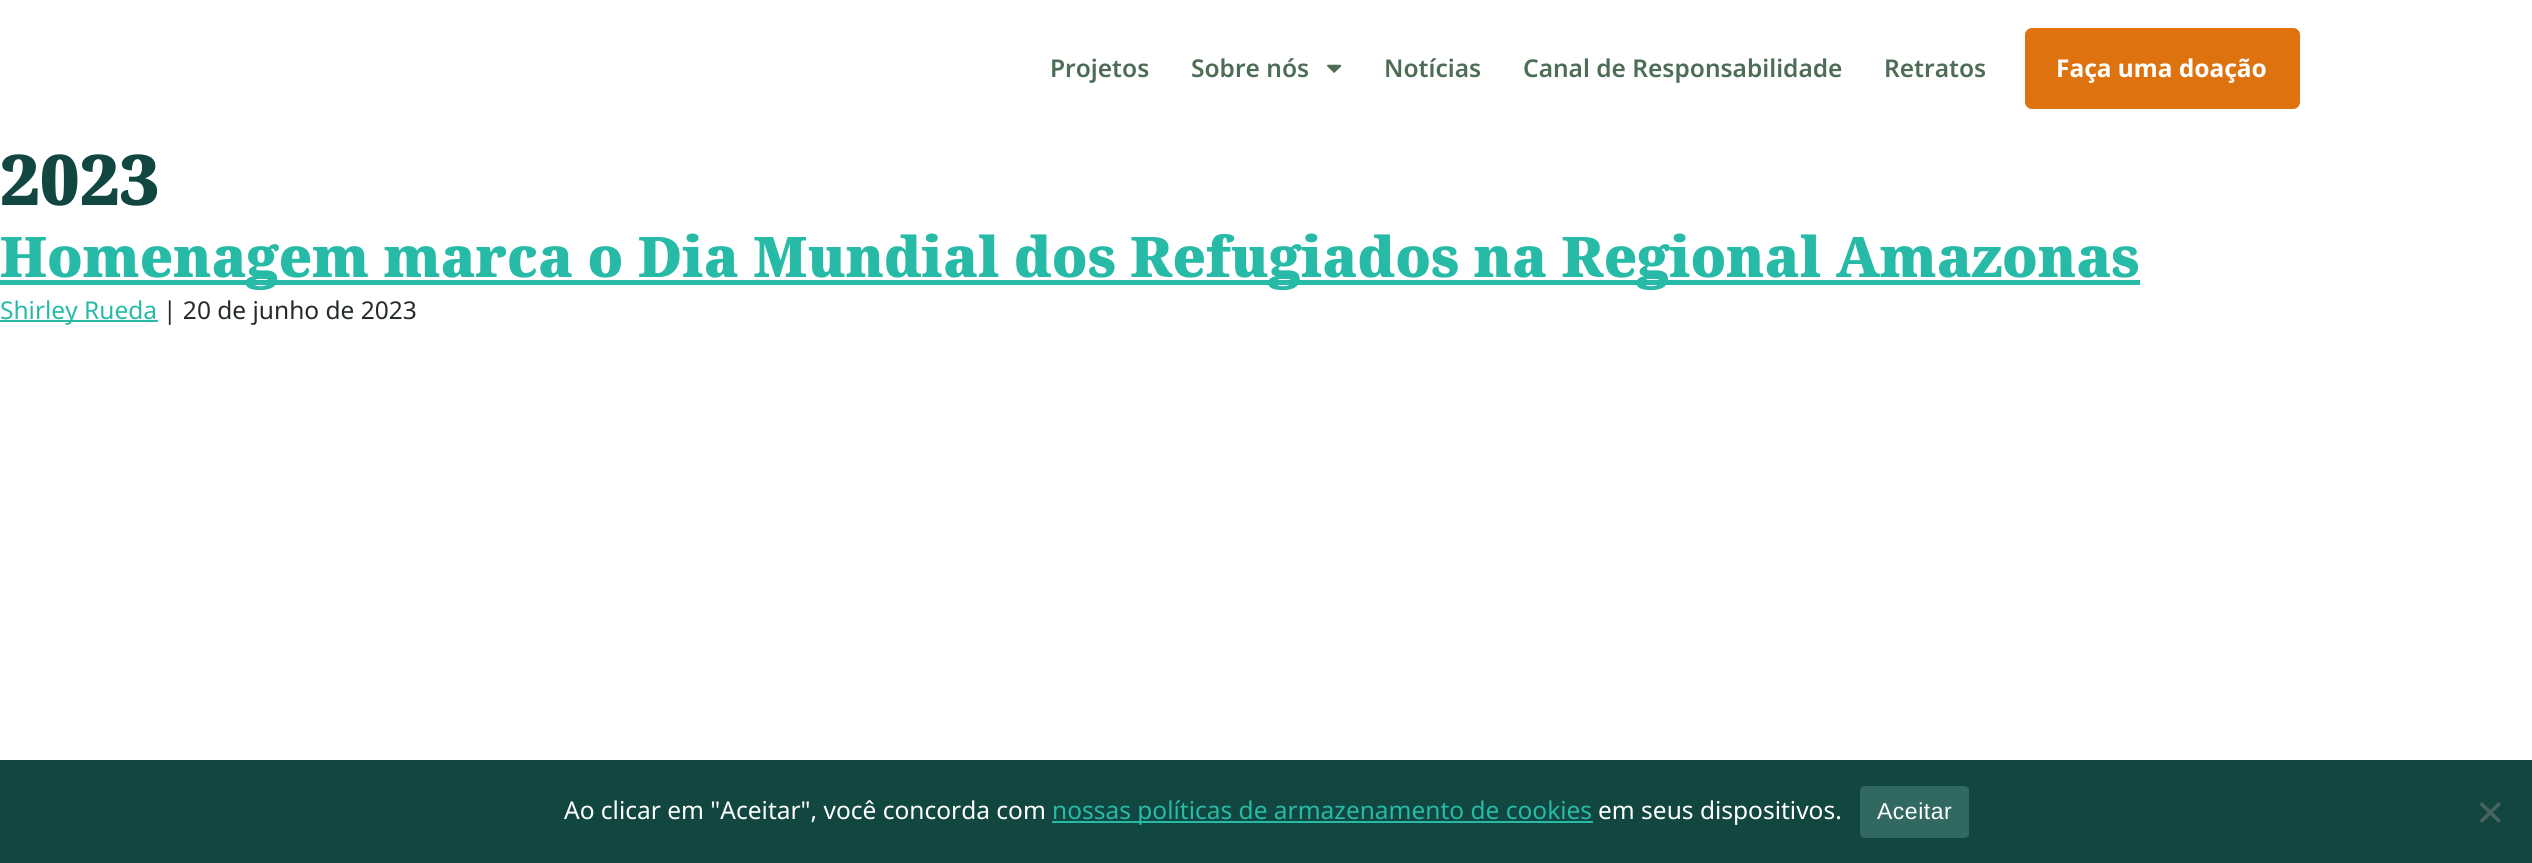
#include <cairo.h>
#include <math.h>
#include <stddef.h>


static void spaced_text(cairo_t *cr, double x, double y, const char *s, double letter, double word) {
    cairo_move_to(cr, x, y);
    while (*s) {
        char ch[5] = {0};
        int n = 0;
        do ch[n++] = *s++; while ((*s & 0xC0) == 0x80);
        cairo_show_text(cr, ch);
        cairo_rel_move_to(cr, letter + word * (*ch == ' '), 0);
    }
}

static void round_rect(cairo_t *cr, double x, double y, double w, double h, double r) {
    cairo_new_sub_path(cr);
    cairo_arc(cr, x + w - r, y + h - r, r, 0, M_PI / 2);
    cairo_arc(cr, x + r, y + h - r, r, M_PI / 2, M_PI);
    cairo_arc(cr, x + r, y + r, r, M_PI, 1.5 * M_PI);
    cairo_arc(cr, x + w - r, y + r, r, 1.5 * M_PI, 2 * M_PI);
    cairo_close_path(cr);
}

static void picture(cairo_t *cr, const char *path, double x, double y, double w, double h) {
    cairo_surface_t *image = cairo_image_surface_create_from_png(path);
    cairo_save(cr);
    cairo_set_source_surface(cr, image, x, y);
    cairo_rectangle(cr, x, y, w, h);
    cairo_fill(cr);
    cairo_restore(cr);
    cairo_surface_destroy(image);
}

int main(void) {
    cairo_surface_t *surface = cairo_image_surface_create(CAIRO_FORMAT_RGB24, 2532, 863);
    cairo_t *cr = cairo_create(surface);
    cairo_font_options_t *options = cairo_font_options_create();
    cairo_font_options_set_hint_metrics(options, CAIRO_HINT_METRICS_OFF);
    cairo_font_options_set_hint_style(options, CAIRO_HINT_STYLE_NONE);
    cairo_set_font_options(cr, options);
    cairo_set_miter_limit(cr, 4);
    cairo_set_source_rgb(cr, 1, 1, 1);
    cairo_paint(cr);
    cairo_select_font_face(cr, "Noto Sans SemiBold", CAIRO_FONT_SLANT_NORMAL, CAIRO_FONT_WEIGHT_NORMAL);
    cairo_set_font_size(cr, 24.5);
    cairo_set_source_rgb(cr, 0.306, 0.427, 0.337);
    cairo_move_to(cr, 1050, 77);
    cairo_show_text(cr, "Projetos");
    cairo_move_to(cr, 1191, 77);
    cairo_show_text(cr, "Sobre nós");
    picture(cr, "img1.png", 1327, 64, 15, 9);
    cairo_move_to(cr, 1384, 77);
    cairo_show_text(cr, "Notícias");
    cairo_move_to(cr, 1523, 77);
    cairo_show_text(cr, "Canal de Responsabilidade");
    cairo_move_to(cr, 1884, 77);
    cairo_show_text(cr, "Retratos");
    cairo_set_source_rgb(cr, 0.867, 0.447, 0.059);
    round_rect(cr, 2025, 28, 275, 81, 7);
    cairo_fill(cr);
    cairo_select_font_face(cr, "Noto Sans", CAIRO_FONT_SLANT_NORMAL, CAIRO_FONT_WEIGHT_BOLD);
    cairo_set_source_rgb(cr, 1, 1, 1);
    cairo_move_to(cr, 2056, 77);
    cairo_show_text(cr, "Faça uma doação");
    cairo_select_font_face(cr, "Noto Serif Black", CAIRO_FONT_SLANT_NORMAL, CAIRO_FONT_WEIGHT_NORMAL);
    cairo_set_font_size(cr, 70);
    cairo_set_source_rgb(cr, 0.067, 0.278, 0.251);
    cairo_move_to(cr, 0, 205);
    cairo_show_text(cr, "2023");
    cairo_set_source_rgb(cr, 0.153, 0.729, 0.651);
    cairo_rectangle(cr, 0, 280, 2140, 5);
    cairo_fill(cr);
    cairo_set_font_size(cr, 56);
    cairo_move_to(cr, 0, 277);
    cairo_show_text(cr, "Homenagem marca o Dia Mundial dos Refugiados na Regional Amazonas");
    cairo_rectangle(cr, 0, 320, 158, 2);
    cairo_fill(cr);
    cairo_select_font_face(cr, "Noto Sans", CAIRO_FONT_SLANT_NORMAL, CAIRO_FONT_WEIGHT_NORMAL);
    cairo_set_font_size(cr, 24.5);
    cairo_move_to(cr, 0, 319);
    cairo_show_text(cr, "Shirley Rueda");
    cairo_set_source_rgb(cr, 0.145, 0.165, 0.173);
    cairo_move_to(cr, 163, 319);
    cairo_show_text(cr, "| 20 de junho de 2023");
    cairo_set_source_rgb(cr, 0.067, 0.278, 0.251);
    cairo_rectangle(cr, 0, 760, 2532, 103);
    cairo_fill(cr);
    cairo_set_source_rgb(cr, 1, 1, 1);
    cairo_move_to(cr, 564, 819);
    cairo_show_text(cr, "Ao clicar em \"Aceitar\", você concorda com");
    cairo_set_source_rgb(cr, 0.153, 0.729, 0.651);
    cairo_rectangle(cr, 1052, 821, 541, 2);
    cairo_fill(cr);
    cairo_move_to(cr, 1052, 819);
    cairo_show_text(cr, "nossas políticas de armazenamento de cookies");
    cairo_set_source_rgb(cr, 1, 1, 1);
    cairo_move_to(cr, 1598, 819);
    cairo_show_text(cr, "em seus dispositivos.");
    cairo_set_source_rgb(cr, 0.192, 0.412, 0.384);
    round_rect(cr, 1860, 786, 109, 52, 5);
    cairo_fill(cr);
    cairo_select_font_face(cr, "Liberation Sans", CAIRO_FONT_SLANT_NORMAL, CAIRO_FONT_WEIGHT_NORMAL);
    cairo_set_font_size(cr, 23);
    cairo_set_source_rgb(cr, 1, 1, 1);
    spaced_text(cr, 1877, 819, "Aceitar", 0.5, 0);
    cairo_set_source_rgb(cr, 0.286, 0.392, 0.376);
    cairo_new_path(cr);
    cairo_move_to(cr, 2498.5, 802);
    cairo_line_to(cr, 2501, 804.5);
    cairo_line_to(cr, 2482, 823);
    cairo_line_to(cr, 2479.5, 820.5);
    cairo_close_path(cr);
    cairo_fill(cr);
    cairo_new_path(cr);
    cairo_move_to(cr, 2479.5, 804.5);
    cairo_line_to(cr, 2482, 802);
    cairo_line_to(cr, 2501, 820.5);
    cairo_line_to(cr, 2498.5, 823);
    cairo_close_path(cr);
    cairo_fill(cr);
    cairo_surface_write_to_png(surface, "page.png");
    cairo_font_options_destroy(options);
    cairo_destroy(cr);
    cairo_surface_destroy(surface);
    return 0;
}
